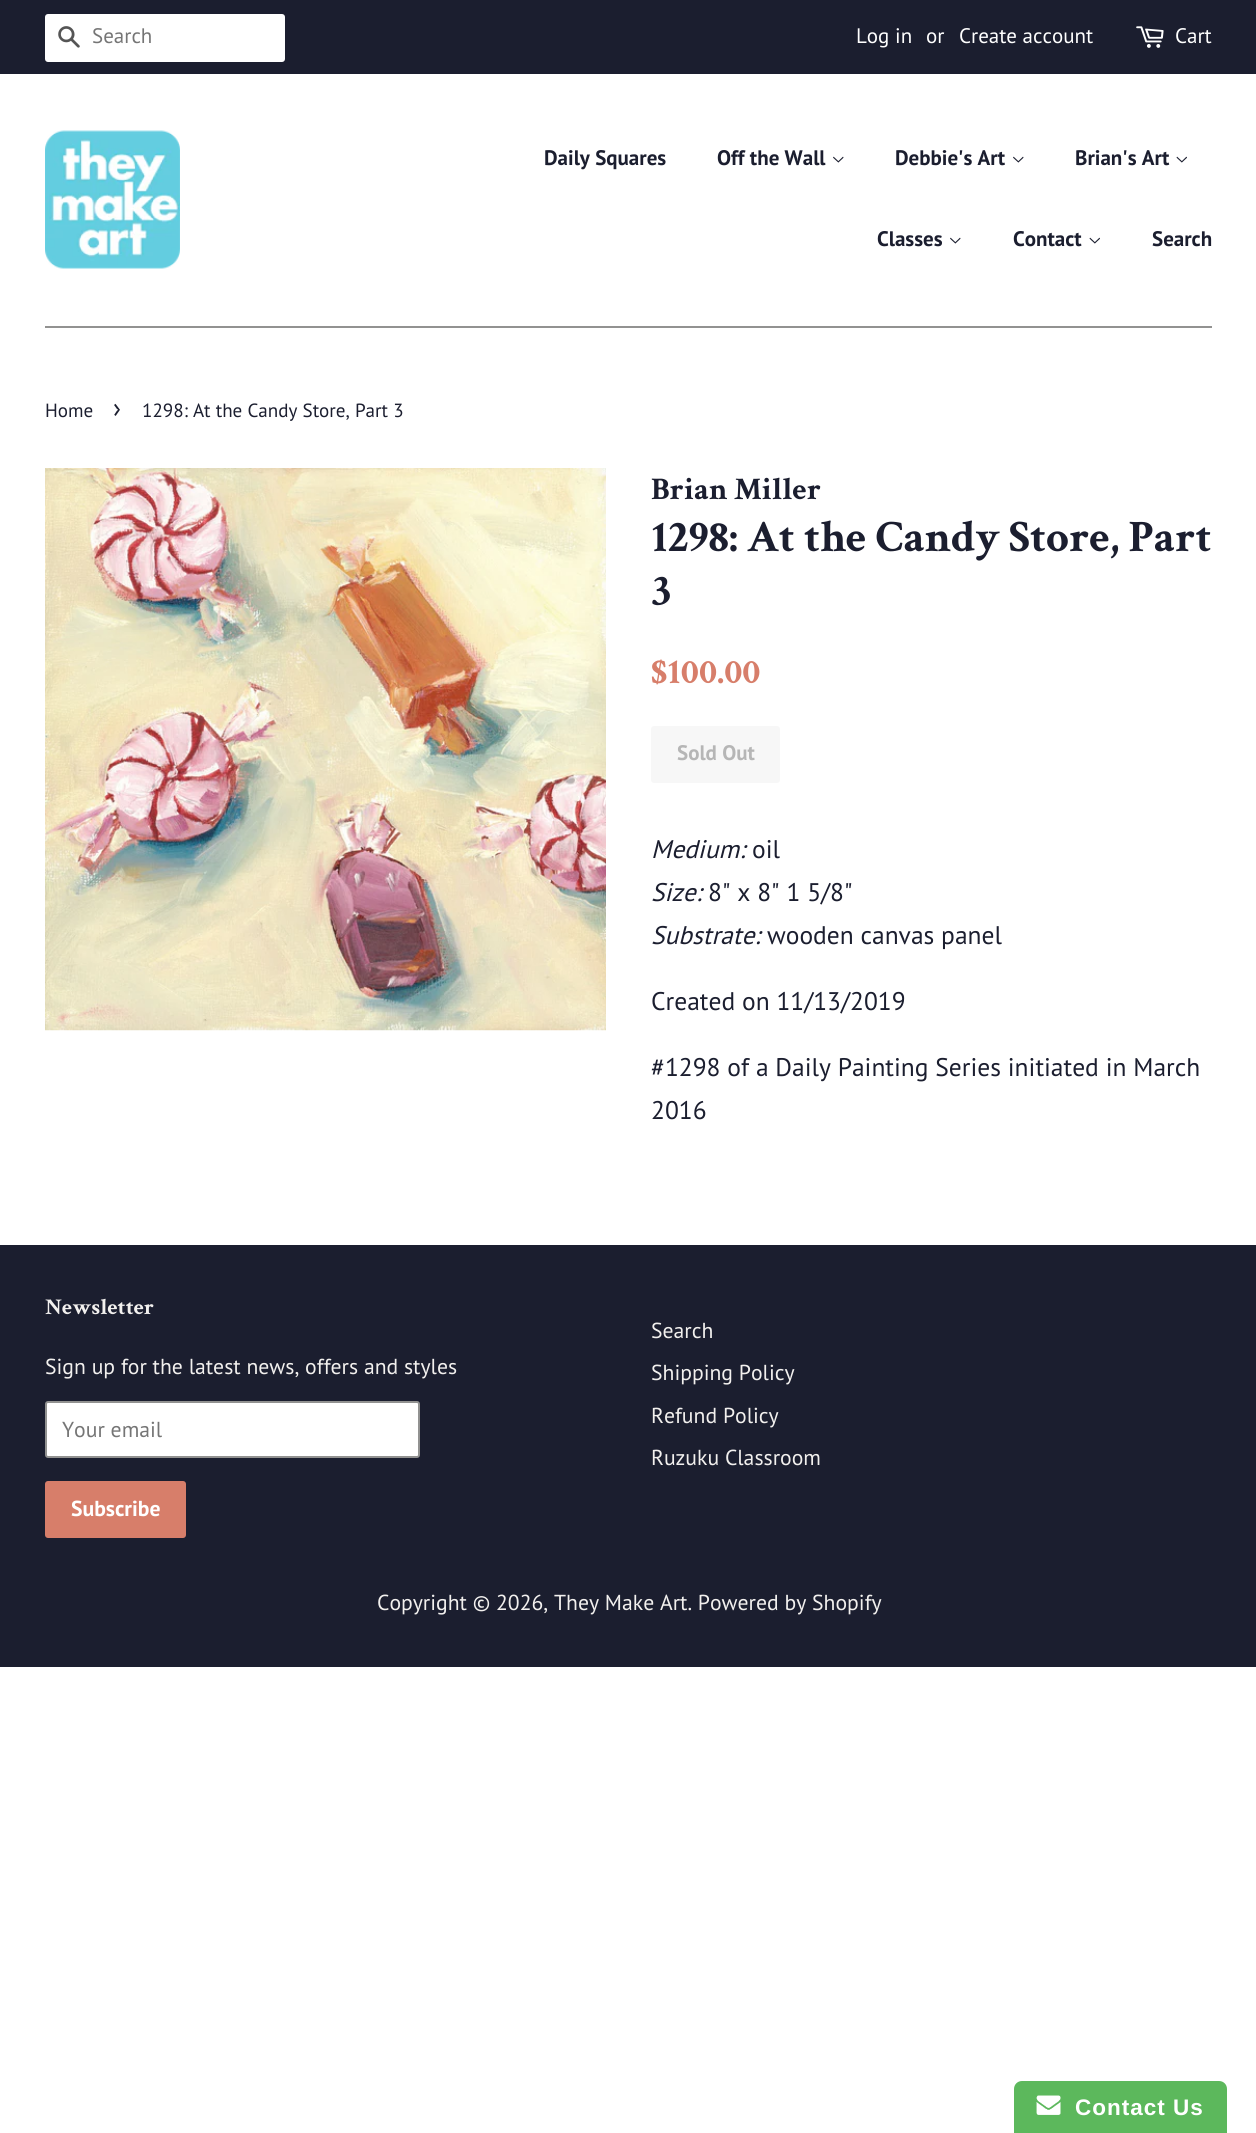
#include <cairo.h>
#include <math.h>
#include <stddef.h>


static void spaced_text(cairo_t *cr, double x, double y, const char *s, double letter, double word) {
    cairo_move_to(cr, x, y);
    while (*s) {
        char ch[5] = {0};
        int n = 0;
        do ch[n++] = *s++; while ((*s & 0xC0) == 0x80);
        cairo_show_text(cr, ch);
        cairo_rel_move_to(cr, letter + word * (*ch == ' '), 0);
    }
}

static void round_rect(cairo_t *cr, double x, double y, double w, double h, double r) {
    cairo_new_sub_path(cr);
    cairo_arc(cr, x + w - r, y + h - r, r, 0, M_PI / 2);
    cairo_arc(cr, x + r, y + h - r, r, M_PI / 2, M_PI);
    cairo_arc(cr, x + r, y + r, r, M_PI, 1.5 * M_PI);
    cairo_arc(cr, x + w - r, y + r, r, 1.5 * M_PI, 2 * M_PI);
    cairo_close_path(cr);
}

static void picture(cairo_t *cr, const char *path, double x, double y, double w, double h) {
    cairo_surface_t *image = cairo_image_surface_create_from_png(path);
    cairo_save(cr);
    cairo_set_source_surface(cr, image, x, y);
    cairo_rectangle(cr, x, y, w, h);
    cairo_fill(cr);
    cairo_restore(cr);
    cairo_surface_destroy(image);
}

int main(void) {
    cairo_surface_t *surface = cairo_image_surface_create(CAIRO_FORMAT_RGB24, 1256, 2133);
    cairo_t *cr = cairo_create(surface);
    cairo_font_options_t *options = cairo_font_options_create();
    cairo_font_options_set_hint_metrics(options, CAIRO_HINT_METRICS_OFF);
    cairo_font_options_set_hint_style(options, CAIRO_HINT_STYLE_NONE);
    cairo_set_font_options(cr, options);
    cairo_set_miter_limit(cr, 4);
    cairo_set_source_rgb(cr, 1, 1, 1);
    cairo_paint(cr);
    cairo_set_source_rgb(cr, 0.106, 0.118, 0.184);
    cairo_rectangle(cr, 0, 0, 1256, 74);
    cairo_fill(cr);
    cairo_set_source_rgb(cr, 1, 1, 1);
    round_rect(cr, 45, 14, 240, 48, 3);
    cairo_fill(cr);
    picture(cr, "img1.png", 58, 26, 22, 22);
    cairo_select_font_face(cr, "PT Sans", CAIRO_FONT_SLANT_NORMAL, CAIRO_FONT_WEIGHT_NORMAL);
    cairo_set_font_size(cr, 21);
    cairo_set_source_rgb(cr, 0.459, 0.459, 0.459);
    cairo_move_to(cr, 92, 43);
    cairo_show_text(cr, "Search");
    cairo_set_source_rgb(cr, 1, 1, 1);
    cairo_move_to(cr, 856, 43);
    cairo_show_text(cr, "Log in");
    cairo_move_to(cr, 926, 43);
    cairo_show_text(cr, "or");
    cairo_move_to(cr, 959, 43);
    cairo_show_text(cr, "Create account");
    picture(cr, "img2.png", 1136, 26, 28, 22);
    cairo_move_to(cr, 1175, 43);
    cairo_show_text(cr, "Cart");
    cairo_set_source_rgb(cr, 0.573, 0.573, 0.569);
    cairo_rectangle(cr, 45, 326, 1167, 2);
    cairo_fill(cr);
    picture(cr, "img3.png", 45, 130, 135, 139);
    cairo_select_font_face(cr, "PT Sans", CAIRO_FONT_SLANT_NORMAL, CAIRO_FONT_WEIGHT_BOLD);
    cairo_set_source_rgb(cr, 0.106, 0.118, 0.184);
    cairo_move_to(cr, 544, 165);
    cairo_show_text(cr, "Daily Squares");
    cairo_move_to(cr, 717, 165);
    cairo_show_text(cr, "Off the Wall");
    picture(cr, "img4.png", 833, 156, 11, 7);
    cairo_move_to(cr, 895, 165);
    cairo_show_text(cr, "Debbie's Art");
    picture(cr, "img4.png", 1013, 156, 11, 7);
    cairo_move_to(cr, 1075, 165);
    cairo_show_text(cr, "Brian's Art");
    picture(cr, "img5.png", 1176, 156, 11, 7);
    cairo_move_to(cr, 877, 246);
    cairo_show_text(cr, "Classes");
    picture(cr, "img4.png", 950, 237, 11, 7);
    cairo_move_to(cr, 1013, 246);
    cairo_show_text(cr, "Contact");
    picture(cr, "img5.png", 1089, 237, 11, 7);
    cairo_move_to(cr, 1152, 246);
    cairo_show_text(cr, "Search");
    cairo_select_font_face(cr, "PT Sans", CAIRO_FONT_SLANT_NORMAL, CAIRO_FONT_WEIGHT_NORMAL);
    cairo_set_font_size(cr, 19.1);
    cairo_move_to(cr, 45, 417);
    cairo_show_text(cr, "Home");
    cairo_set_font_size(cr, 27);
    cairo_move_to(cr, 113, 417);
    cairo_show_text(cr, "›");
    cairo_set_font_size(cr, 19.1);
    cairo_move_to(cr, 142, 417);
    cairo_show_text(cr, "1298: At the Candy Store, Part 3");
    picture(cr, "img6.png", 45, 468, 561, 563);
    cairo_select_font_face(cr, "Crimson Text", CAIRO_FONT_SLANT_NORMAL, CAIRO_FONT_WEIGHT_BOLD);
    cairo_set_font_size(cr, 31.5);
    cairo_move_to(cr, 651, 499);
    cairo_show_text(cr, "Brian Miller");
    cairo_set_font_size(cr, 45);
    cairo_move_to(cr, 651, 551);
    cairo_show_text(cr, "1298: At the Candy Store, Part");
    cairo_move_to(cr, 651, 605);
    cairo_show_text(cr, "3");
    cairo_set_font_size(cr, 36);
    cairo_set_source_rgb(cr, 0.843, 0.494, 0.416);
    cairo_move_to(cr, 651, 683);
    cairo_show_text(cr, "$100.00");
    cairo_set_source_rgb(cr, 0.965, 0.965, 0.965);
    round_rect(cr, 651, 726, 129, 57, 3);
    cairo_fill(cr);
    cairo_select_font_face(cr, "PT Sans", CAIRO_FONT_SLANT_NORMAL, CAIRO_FONT_WEIGHT_BOLD);
    cairo_set_font_size(cr, 21);
    cairo_set_source_rgb(cr, 0.714, 0.714, 0.714);
    cairo_move_to(cr, 677, 760);
    cairo_show_text(cr, "Sold Out");
    cairo_select_font_face(cr, "PT Sans", CAIRO_FONT_SLANT_ITALIC, CAIRO_FONT_WEIGHT_NORMAL);
    cairo_set_font_size(cr, 25.5);
    cairo_set_source_rgb(cr, 0.106, 0.118, 0.184);
    cairo_move_to(cr, 651, 858);
    cairo_show_text(cr, "Medium:");
    cairo_select_font_face(cr, "PT Sans", CAIRO_FONT_SLANT_NORMAL, CAIRO_FONT_WEIGHT_NORMAL);
    cairo_move_to(cr, 752, 858);
    cairo_show_text(cr, "oil");
    cairo_select_font_face(cr, "PT Sans", CAIRO_FONT_SLANT_ITALIC, CAIRO_FONT_WEIGHT_NORMAL);
    cairo_move_to(cr, 651, 901);
    cairo_show_text(cr, "Size:");
    cairo_select_font_face(cr, "PT Sans", CAIRO_FONT_SLANT_NORMAL, CAIRO_FONT_WEIGHT_NORMAL);
    cairo_move_to(cr, 708, 901);
    cairo_show_text(cr, "8\" x 8\" 1 5/8\"");
    cairo_select_font_face(cr, "PT Sans", CAIRO_FONT_SLANT_ITALIC, CAIRO_FONT_WEIGHT_NORMAL);
    cairo_move_to(cr, 651, 944);
    cairo_show_text(cr, "Substrate:");
    cairo_select_font_face(cr, "PT Sans", CAIRO_FONT_SLANT_NORMAL, CAIRO_FONT_WEIGHT_NORMAL);
    cairo_move_to(cr, 767, 944);
    cairo_show_text(cr, "wooden canvas panel");
    cairo_move_to(cr, 651, 1010);
    cairo_show_text(cr, "Created on 11/13/2019");
    cairo_move_to(cr, 651, 1076);
    cairo_show_text(cr, "#1298 of a Daily Painting Series initiated in March");
    cairo_move_to(cr, 651, 1119);
    cairo_show_text(cr, "2016");
    cairo_rectangle(cr, 0, 1245, 1256, 422);
    cairo_fill(cr);
    cairo_select_font_face(cr, "Crimson Text", CAIRO_FONT_SLANT_NORMAL, CAIRO_FONT_WEIGHT_BOLD);
    cairo_set_font_size(cr, 22.5);
    cairo_set_source_rgb(cr, 0.949, 0.941, 0.933);
    cairo_move_to(cr, 45, 1314);
    cairo_show_text(cr, "Newsletter");
    cairo_select_font_face(cr, "PT Sans", CAIRO_FONT_SLANT_NORMAL, CAIRO_FONT_WEIGHT_NORMAL);
    cairo_set_font_size(cr, 21.7);
    cairo_move_to(cr, 45, 1374);
    cairo_show_text(cr, "Sign up for the latest news, offers and styles");
    cairo_set_source_rgb(cr, 1, 1, 1);
    round_rect(cr, 46, 1402, 373, 55, 2);
    cairo_fill_preserve(cr);
    cairo_set_source_rgb(cr, 0.573, 0.573, 0.569);
    cairo_stroke(cr);
    cairo_set_source_rgb(cr, 0.459, 0.459, 0.459);
    cairo_move_to(cr, 62, 1437);
    cairo_show_text(cr, "Your email");
    cairo_set_source_rgb(cr, 0.843, 0.494, 0.416);
    round_rect(cr, 45, 1481, 141, 57, 3);
    cairo_fill(cr);
    cairo_select_font_face(cr, "PT Sans", CAIRO_FONT_SLANT_NORMAL, CAIRO_FONT_WEIGHT_BOLD);
    cairo_set_source_rgb(cr, 1, 1, 1);
    cairo_move_to(cr, 71, 1516);
    cairo_show_text(cr, "Subscribe");
    cairo_select_font_face(cr, "PT Sans", CAIRO_FONT_SLANT_NORMAL, CAIRO_FONT_WEIGHT_NORMAL);
    cairo_set_source_rgb(cr, 0.949, 0.941, 0.933);
    cairo_move_to(cr, 651, 1338);
    cairo_show_text(cr, "Search");
    cairo_move_to(cr, 651, 1380);
    cairo_show_text(cr, "Shipping Policy");
    cairo_move_to(cr, 651, 1423);
    cairo_show_text(cr, "Refund Policy");
    cairo_move_to(cr, 651, 1465);
    cairo_show_text(cr, "Ruzuku Classroom");
    cairo_move_to(cr, 377, 1610);
    cairo_show_text(cr, "Copyright © 2026, They Make Art. Powered by Shopify");
    cairo_set_source_rgb(cr, 0.361, 0.722, 0.361);
    cairo_new_path(cr);
    cairo_move_to(cr, 1022, 2081);
    cairo_line_to(cr, 1219, 2081);
    cairo_curve_to(cr, 1223.5, 2081, 1227, 2084.5, 1227, 2089);
    cairo_line_to(cr, 1227, 2133);
    cairo_line_to(cr, 1014, 2133);
    cairo_line_to(cr, 1014, 2089);
    cairo_curve_to(cr, 1014, 2084.5, 1017.5, 2081, 1022, 2081);
    cairo_close_path(cr);
    cairo_fill(cr);
    picture(cr, "img7.png", 1036, 2095, 25, 20);
    cairo_select_font_face(cr, "Liberation Sans", CAIRO_FONT_SLANT_NORMAL, CAIRO_FONT_WEIGHT_BOLD);
    cairo_set_font_size(cr, 22.5);
    cairo_set_source_rgb(cr, 1, 1, 1);
    spaced_text(cr, 1075, 2115, "Contact Us", 1, 0);
    cairo_surface_write_to_png(surface, "page.png");
    cairo_font_options_destroy(options);
    cairo_destroy(cr);
    cairo_surface_destroy(surface);
    return 0;
}
